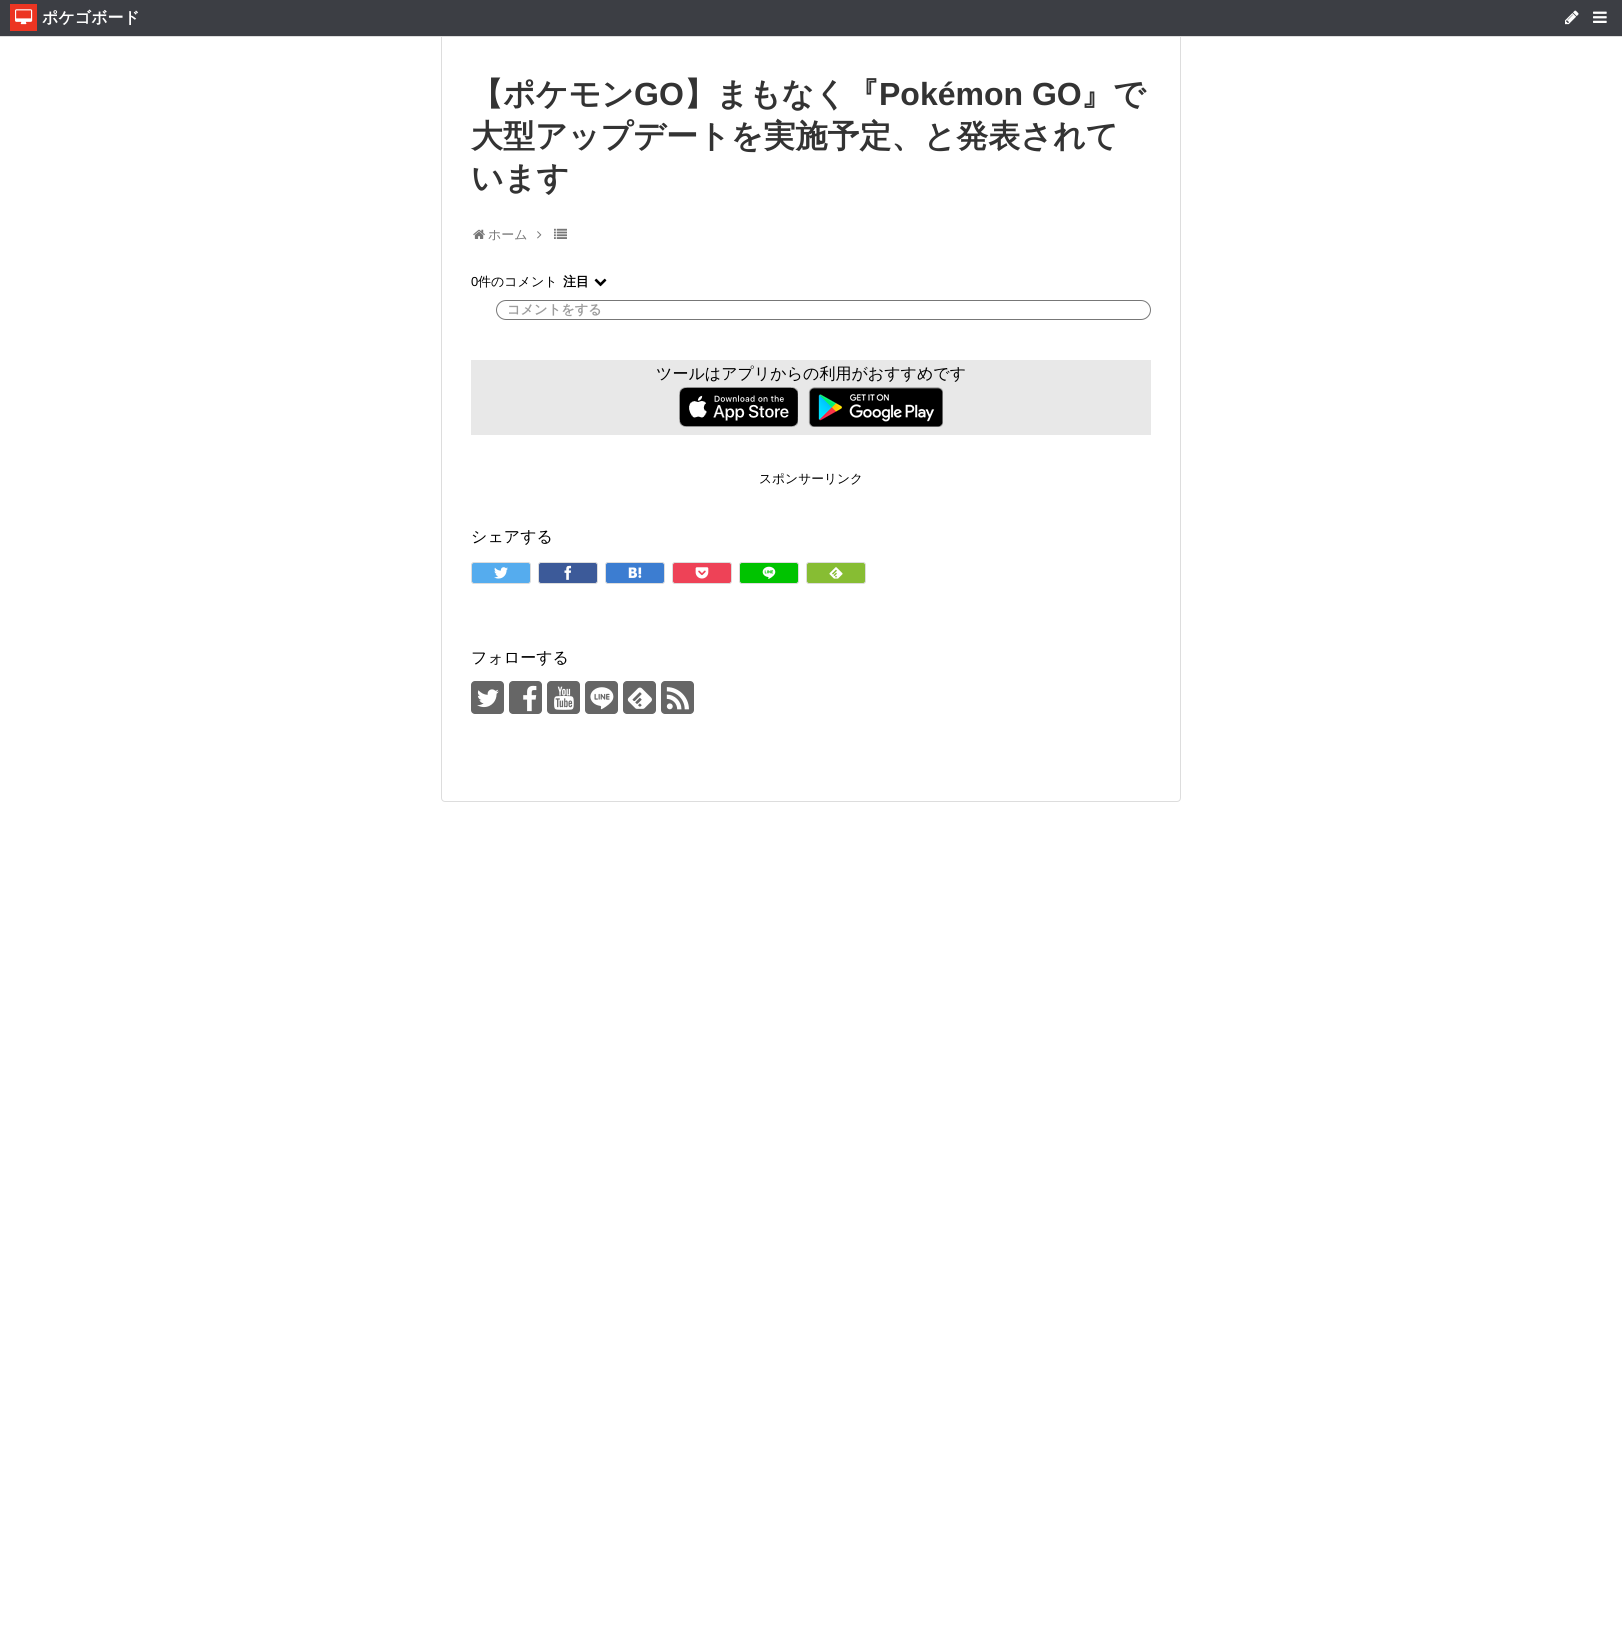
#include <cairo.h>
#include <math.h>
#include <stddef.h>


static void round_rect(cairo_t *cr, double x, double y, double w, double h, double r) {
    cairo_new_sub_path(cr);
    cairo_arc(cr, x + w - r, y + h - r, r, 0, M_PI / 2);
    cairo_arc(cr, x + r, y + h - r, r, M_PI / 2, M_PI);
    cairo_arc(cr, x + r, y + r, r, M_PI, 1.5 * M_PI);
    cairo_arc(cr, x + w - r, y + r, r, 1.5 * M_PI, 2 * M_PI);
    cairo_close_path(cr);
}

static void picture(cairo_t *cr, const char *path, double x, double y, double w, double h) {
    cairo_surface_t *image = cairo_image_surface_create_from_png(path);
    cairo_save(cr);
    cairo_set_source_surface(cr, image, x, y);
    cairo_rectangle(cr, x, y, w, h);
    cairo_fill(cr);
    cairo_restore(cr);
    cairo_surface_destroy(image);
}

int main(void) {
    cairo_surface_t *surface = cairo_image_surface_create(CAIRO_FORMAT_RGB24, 1622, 1644);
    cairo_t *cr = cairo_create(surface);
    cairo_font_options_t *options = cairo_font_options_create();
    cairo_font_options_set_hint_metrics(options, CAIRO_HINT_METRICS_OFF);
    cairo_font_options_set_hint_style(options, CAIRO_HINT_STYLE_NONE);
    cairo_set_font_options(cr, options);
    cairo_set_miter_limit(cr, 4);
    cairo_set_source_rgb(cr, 1, 1, 1);
    cairo_paint(cr);
    round_rect(cr, 441.5, 15.5, 739, 786, 3.5);
    cairo_set_source_rgb(cr, 0.867, 0.867, 0.867);
    cairo_set_line_width(cr, 1);
    cairo_stroke(cr);
    cairo_set_source_rgb(cr, 0.235, 0.243, 0.267);
    cairo_rectangle(cr, 0, 0, 1622, 36);
    cairo_fill(cr);
    cairo_set_source_rgb(cr, 0.867, 0.867, 0.867);
    cairo_rectangle(cr, 0, 36, 1622, 1);
    cairo_fill(cr);
    cairo_set_source_rgb(cr, 0.922, 0.208, 0.133);
    cairo_rectangle(cr, 10, 4, 27, 27);
    cairo_fill(cr);
    picture(cr, "img1.png", 15, 9, 18, 16);
    cairo_select_font_face(cr, "WenQuanYi Zen Hei", CAIRO_FONT_SLANT_NORMAL, CAIRO_FONT_WEIGHT_BOLD);
    cairo_set_font_size(cr, 16);
    cairo_set_source_rgb(cr, 1, 1, 1);
    cairo_move_to(cr, 42, 23);
    cairo_show_text(cr, "ポケゴボード");
    picture(cr, "img2.png", 1565, 10, 14, 15);
    picture(cr, "img3.png", 1593, 11, 14, 12);
    cairo_set_font_size(cr, 32);
    cairo_set_source_rgb(cr, 0.2, 0.2, 0.2);
    cairo_move_to(cr, 471, 105);
    cairo_show_text(cr, "【ポケモン");
    cairo_select_font_face(cr, "Liberation Sans", CAIRO_FONT_SLANT_NORMAL, CAIRO_FONT_WEIGHT_BOLD);
    cairo_move_to(cr, 634, 105);
    cairo_show_text(cr, "GO");
    cairo_select_font_face(cr, "WenQuanYi Zen Hei", CAIRO_FONT_SLANT_NORMAL, CAIRO_FONT_WEIGHT_BOLD);
    cairo_move_to(cr, 684, 105);
    cairo_show_text(cr, "】まもなく『");
    cairo_select_font_face(cr, "Liberation Sans", CAIRO_FONT_SLANT_NORMAL, CAIRO_FONT_WEIGHT_BOLD);
    cairo_move_to(cr, 879, 105);
    cairo_show_text(cr, "Pokémon GO");
    cairo_select_font_face(cr, "WenQuanYi Zen Hei", CAIRO_FONT_SLANT_NORMAL, CAIRO_FONT_WEIGHT_BOLD);
    cairo_move_to(cr, 1081, 105);
    cairo_show_text(cr, "』で");
    cairo_move_to(cr, 471, 147);
    cairo_show_text(cr, "大型アップデートを実施予定、と発表されて");
    cairo_move_to(cr, 471, 189);
    cairo_show_text(cr, "います");
    picture(cr, "img4.png", 473, 229, 12, 10);
    cairo_select_font_face(cr, "WenQuanYi Zen Hei Medium", CAIRO_FONT_SLANT_NORMAL, CAIRO_FONT_WEIGHT_NORMAL);
    cairo_set_font_size(cr, 13);
    cairo_set_source_rgb(cr, 0.467, 0.467, 0.467);
    cairo_move_to(cr, 488, 239);
    cairo_show_text(cr, "ホーム");
    picture(cr, "img5.png", 537, 231, 5, 8);
    picture(cr, "img6.png", 554, 228, 13, 11);
    cairo_select_font_face(cr, "Liberation Sans", CAIRO_FONT_SLANT_NORMAL, CAIRO_FONT_WEIGHT_NORMAL);
    cairo_set_source_rgb(cr, 0, 0, 0);
    cairo_move_to(cr, 471, 286);
    cairo_show_text(cr, "0");
    cairo_select_font_face(cr, "WenQuanYi Zen Hei Medium", CAIRO_FONT_SLANT_NORMAL, CAIRO_FONT_WEIGHT_NORMAL);
    cairo_move_to(cr, 478, 286);
    cairo_show_text(cr, "件のコメント");
    cairo_select_font_face(cr, "WenQuanYi Zen Hei", CAIRO_FONT_SLANT_NORMAL, CAIRO_FONT_WEIGHT_BOLD);
    cairo_move_to(cr, 563, 286);
    cairo_show_text(cr, "注目");
    picture(cr, "img7.png", 594, 278, 13, 9);
    round_rect(cr, 496.5, 300.5, 654, 19, 9.5);
    cairo_set_source_rgb(cr, 0.467, 0.467, 0.467);
    cairo_stroke(cr);
    cairo_set_font_size(cr, 13.25);
    cairo_set_source_rgb(cr, 0.616, 0.616, 0.616);
    cairo_move_to(cr, 507, 314);
    cairo_show_text(cr, "コメントをする");
    cairo_set_source_rgb(cr, 0.91, 0.91, 0.91);
    cairo_rectangle(cr, 471, 360, 680, 75);
    cairo_fill(cr);
    cairo_select_font_face(cr, "WenQuanYi Zen Hei Medium", CAIRO_FONT_SLANT_NORMAL, CAIRO_FONT_WEIGHT_NORMAL);
    cairo_set_font_size(cr, 16);
    cairo_set_source_rgb(cr, 0, 0, 0);
    cairo_move_to(cr, 656, 379);
    cairo_show_text(cr, "ツールはアプリからの利用がおすすめです");
    picture(cr, "img8.png", 679, 387, 119, 40);
    picture(cr, "img9.png", 808, 387, 135, 40);
    cairo_set_font_size(cr, 12.75);
    cairo_move_to(cr, 759, 483);
    cairo_show_text(cr, "スポンサーリンク");
    cairo_set_font_size(cr, 16);
    cairo_move_to(cr, 471, 542);
    cairo_show_text(cr, "シェアする");
    cairo_set_source_rgb(cr, 0.333, 0.675, 0.933);
    round_rect(cr, 471.5, 562.5, 59, 21, 2.5);
    cairo_fill_preserve(cr);
    cairo_set_source_rgb(cr, 0.867, 0.867, 0.867);
    cairo_stroke(cr);
    picture(cr, "img10.png", 494, 567, 14, 12);
    cairo_set_source_rgb(cr, 0.235, 0.353, 0.6);
    round_rect(cr, 538.5, 562.5, 59, 21, 2.5);
    cairo_fill_preserve(cr);
    cairo_set_source_rgb(cr, 0.867, 0.867, 0.867);
    cairo_stroke(cr);
    picture(cr, "img11.png", 564, 565, 8, 15);
    cairo_set_source_rgb(cr, 0.235, 0.49, 0.82);
    round_rect(cr, 605.5, 562.5, 59, 21, 2.5);
    cairo_fill_preserve(cr);
    cairo_set_source_rgb(cr, 0.867, 0.867, 0.867);
    cairo_stroke(cr);
    picture(cr, "img12.png", 628, 567, 14, 11);
    cairo_set_source_rgb(cr, 0.933, 0.259, 0.341);
    round_rect(cr, 672.5, 562.5, 59, 21, 2.5);
    cairo_fill_preserve(cr);
    cairo_set_source_rgb(cr, 0.867, 0.867, 0.867);
    cairo_stroke(cr);
    picture(cr, "img13.png", 695, 567, 14, 12);
    cairo_set_source_rgb(cr, 0, 0.765, 0);
    round_rect(cr, 739.5, 562.5, 59, 21, 2.5);
    cairo_fill_preserve(cr);
    cairo_set_source_rgb(cr, 0.867, 0.867, 0.867);
    cairo_stroke(cr);
    picture(cr, "img14.png", 762, 566, 14, 13);
    cairo_set_source_rgb(cr, 0.529, 0.741, 0.2);
    round_rect(cr, 806.5, 562.5, 59, 21, 2.5);
    cairo_fill_preserve(cr);
    cairo_set_source_rgb(cr, 0.867, 0.867, 0.867);
    cairo_stroke(cr);
    picture(cr, "img15.png", 829, 567, 14, 12);
    cairo_set_source_rgb(cr, 0, 0, 0);
    cairo_move_to(cr, 471, 663);
    cairo_show_text(cr, "フォローする");
    cairo_set_source_rgb(cr, 0.4, 0.4, 0.4);
    round_rect(cr, 471, 681, 33, 33, 4);
    cairo_fill(cr);
    picture(cr, "img16.png", 477, 689, 22, 19);
    round_rect(cr, 509, 681, 33, 33, 4);
    cairo_fill(cr);
    picture(cr, "img17.png", 523, 685, 14, 27);
    round_rect(cr, 547, 681, 33, 33, 4);
    cairo_fill(cr);
    picture(cr, "img18.png", 554, 686, 20, 24);
    round_rect(cr, 585, 681, 33, 33, 4);
    cairo_fill(cr);
    picture(cr, "img19.png", 590, 687, 24, 23);
    round_rect(cr, 623, 681, 33, 33, 4);
    cairo_fill(cr);
    picture(cr, "img20.png", 627, 687, 25, 22);
    round_rect(cr, 661, 681, 33, 33, 4);
    cairo_fill(cr);
    picture(cr, "img21.png", 666, 687, 23, 23);
    cairo_surface_write_to_png(surface, "page.png");
    cairo_font_options_destroy(options);
    cairo_destroy(cr);
    cairo_surface_destroy(surface);
    return 0;
}
